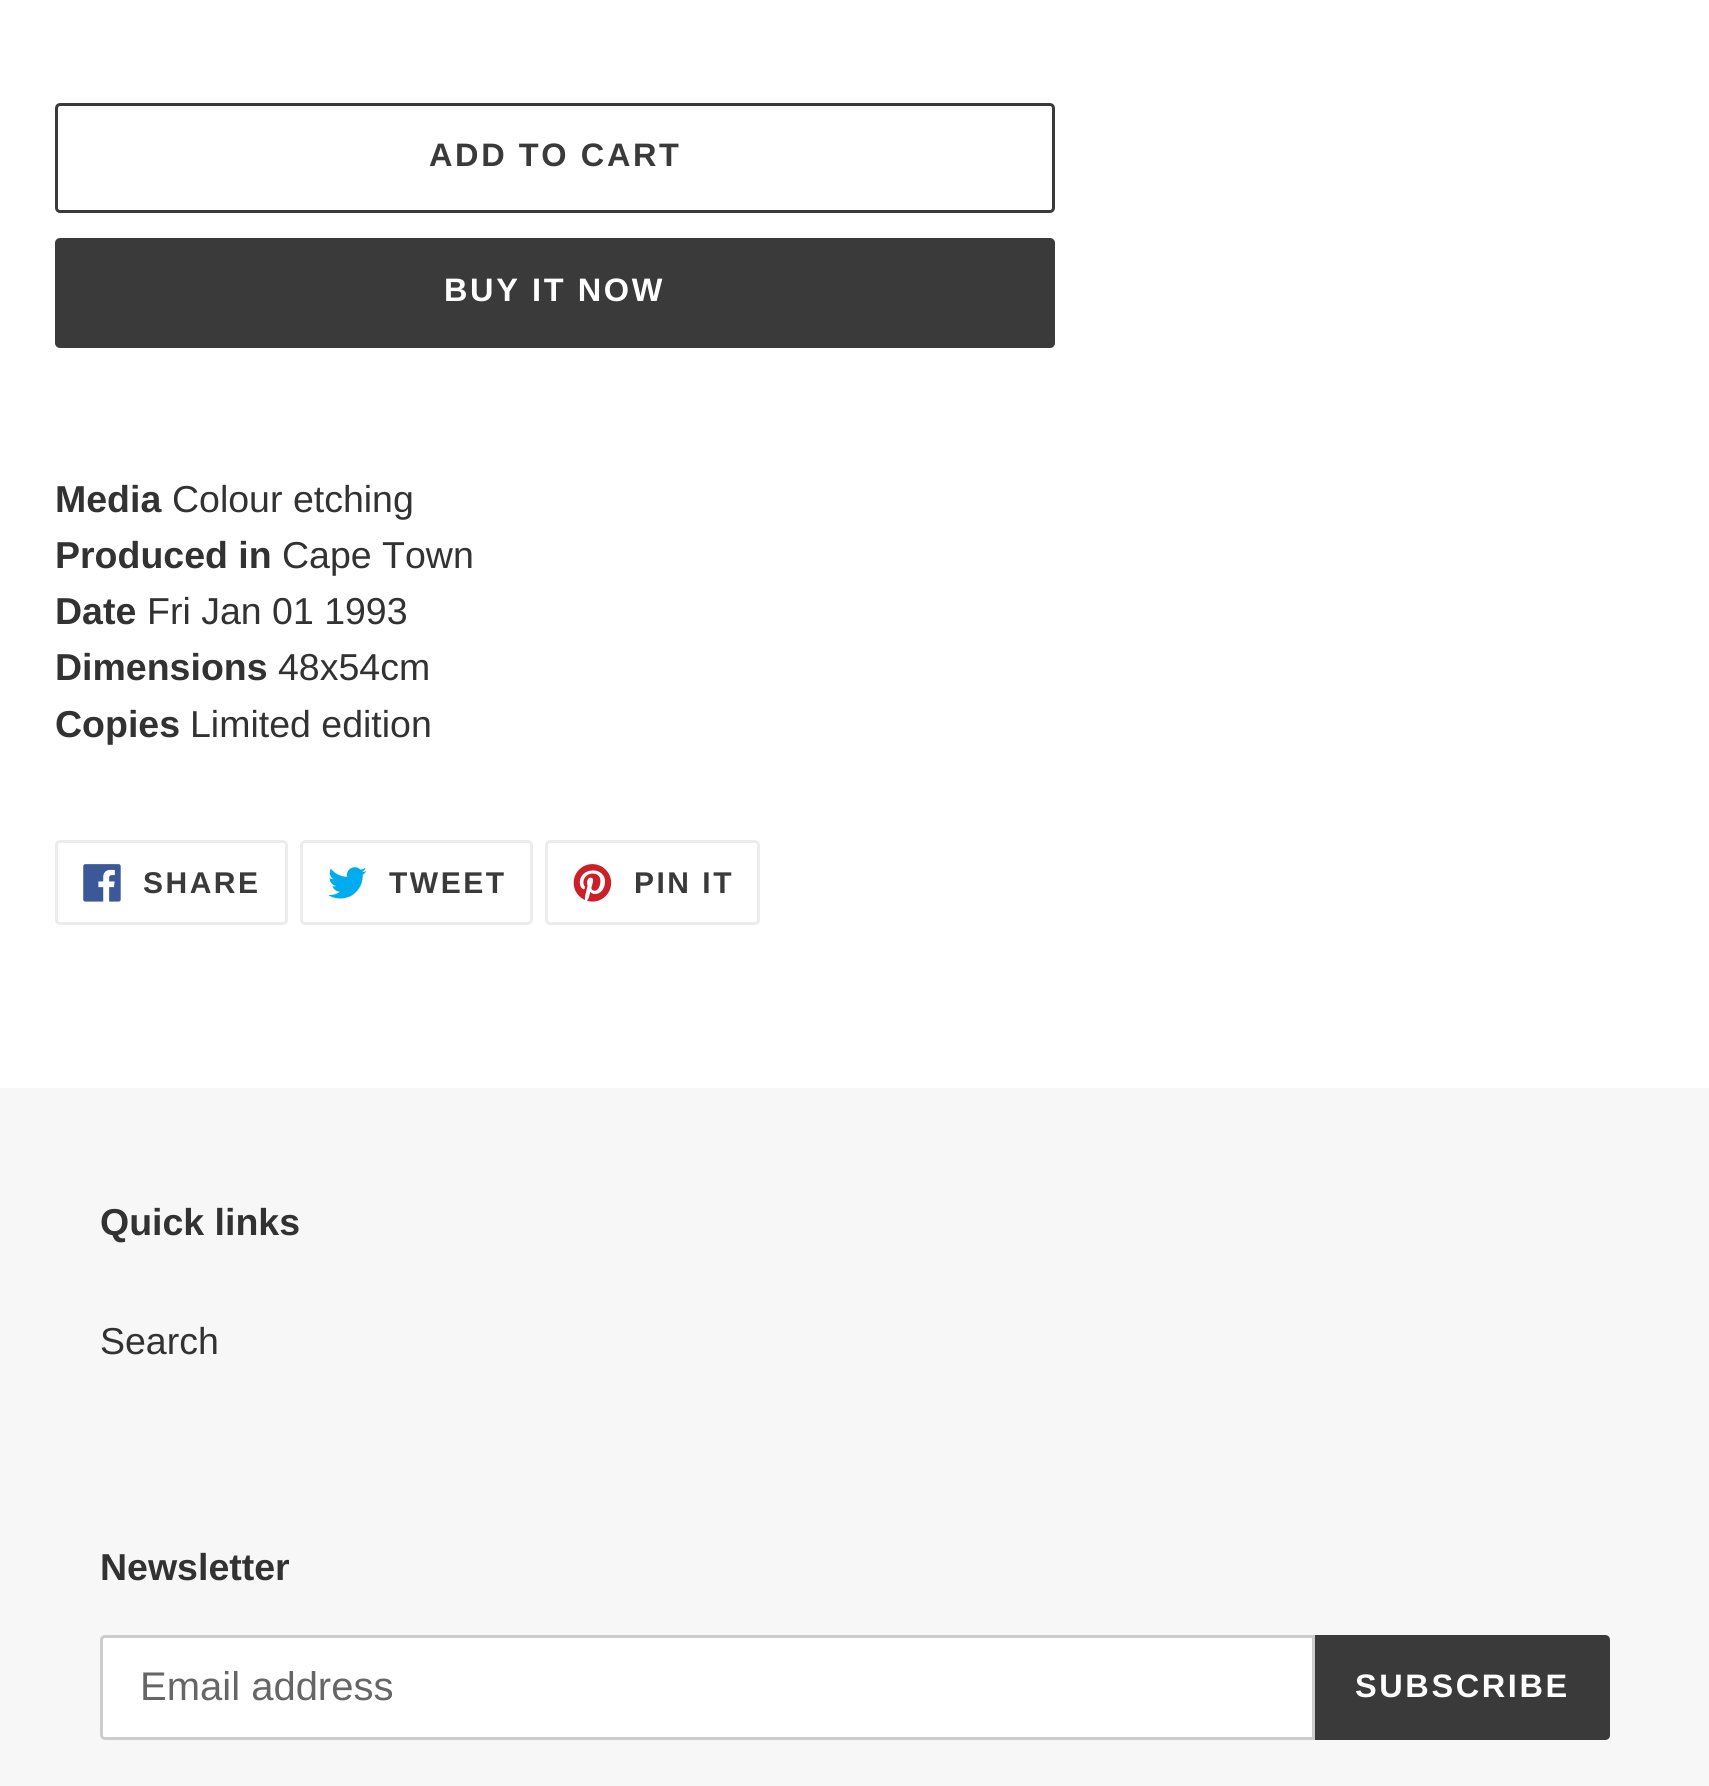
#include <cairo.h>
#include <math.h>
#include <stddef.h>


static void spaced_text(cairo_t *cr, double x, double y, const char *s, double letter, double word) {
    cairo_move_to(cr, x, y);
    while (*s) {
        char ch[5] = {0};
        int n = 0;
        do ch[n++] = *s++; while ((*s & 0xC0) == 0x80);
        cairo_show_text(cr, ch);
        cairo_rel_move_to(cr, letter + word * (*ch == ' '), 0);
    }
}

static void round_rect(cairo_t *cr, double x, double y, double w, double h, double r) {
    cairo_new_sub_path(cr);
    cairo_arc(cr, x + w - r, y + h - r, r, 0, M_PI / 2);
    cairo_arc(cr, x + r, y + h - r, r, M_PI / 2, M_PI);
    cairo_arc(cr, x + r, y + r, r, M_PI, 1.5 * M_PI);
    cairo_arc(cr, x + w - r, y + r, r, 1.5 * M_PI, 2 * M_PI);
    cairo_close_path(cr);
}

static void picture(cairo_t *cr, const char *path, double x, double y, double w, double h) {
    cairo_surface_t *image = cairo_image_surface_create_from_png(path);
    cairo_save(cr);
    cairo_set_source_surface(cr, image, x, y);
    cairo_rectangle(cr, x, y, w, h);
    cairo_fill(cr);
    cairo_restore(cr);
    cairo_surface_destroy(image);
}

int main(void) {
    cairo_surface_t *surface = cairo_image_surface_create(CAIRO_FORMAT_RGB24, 1709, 1786);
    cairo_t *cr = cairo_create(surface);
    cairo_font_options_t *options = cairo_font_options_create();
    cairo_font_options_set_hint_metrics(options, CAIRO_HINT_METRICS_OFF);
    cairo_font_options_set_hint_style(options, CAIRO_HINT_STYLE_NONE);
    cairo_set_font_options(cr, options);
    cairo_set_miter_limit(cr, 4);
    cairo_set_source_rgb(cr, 1, 1, 1);
    cairo_paint(cr);
    round_rect(cr, 56.5, 104.5, 997, 107, 3.5);
    cairo_set_source_rgb(cr, 0.227, 0.227, 0.227);
    cairo_set_line_width(cr, 3);
    cairo_stroke(cr);
    cairo_select_font_face(cr, "Liberation Sans", CAIRO_FONT_SLANT_NORMAL, CAIRO_FONT_WEIGHT_BOLD);
    cairo_set_font_size(cr, 32.5);
    spaced_text(cr, 429, 166, "ADD TO CART", 2.6, 0);
    round_rect(cr, 55, 238, 1000, 110, 5);
    cairo_fill(cr);
    cairo_set_source_rgb(cr, 1, 1, 1);
    spaced_text(cr, 444, 301, "BUY IT NOW", 2.6, 0);
    cairo_set_font_size(cr, 37.5);
    cairo_set_source_rgb(cr, 0.2, 0.196, 0.196);
    cairo_move_to(cr, 55, 512);
    cairo_show_text(cr, "Media");
    cairo_select_font_face(cr, "Liberation Sans", CAIRO_FONT_SLANT_NORMAL, CAIRO_FONT_WEIGHT_NORMAL);
    cairo_move_to(cr, 172, 512);
    cairo_show_text(cr, "Colour etching");
    cairo_select_font_face(cr, "Liberation Sans", CAIRO_FONT_SLANT_NORMAL, CAIRO_FONT_WEIGHT_BOLD);
    cairo_move_to(cr, 55, 568);
    cairo_show_text(cr, "Produced in");
    cairo_select_font_face(cr, "Liberation Sans", CAIRO_FONT_SLANT_NORMAL, CAIRO_FONT_WEIGHT_NORMAL);
    cairo_move_to(cr, 282, 568);
    cairo_show_text(cr, "Cape Town");
    cairo_select_font_face(cr, "Liberation Sans", CAIRO_FONT_SLANT_NORMAL, CAIRO_FONT_WEIGHT_BOLD);
    cairo_move_to(cr, 55, 624);
    cairo_show_text(cr, "Date");
    cairo_select_font_face(cr, "Liberation Sans", CAIRO_FONT_SLANT_NORMAL, CAIRO_FONT_WEIGHT_NORMAL);
    cairo_move_to(cr, 147, 624);
    cairo_show_text(cr, "Fri Jan 01 1993");
    cairo_select_font_face(cr, "Liberation Sans", CAIRO_FONT_SLANT_NORMAL, CAIRO_FONT_WEIGHT_BOLD);
    cairo_move_to(cr, 55, 680);
    cairo_show_text(cr, "Dimensions");
    cairo_select_font_face(cr, "Liberation Sans", CAIRO_FONT_SLANT_NORMAL, CAIRO_FONT_WEIGHT_NORMAL);
    cairo_move_to(cr, 278, 680);
    cairo_show_text(cr, "48x54cm");
    cairo_select_font_face(cr, "Liberation Sans", CAIRO_FONT_SLANT_NORMAL, CAIRO_FONT_WEIGHT_BOLD);
    cairo_move_to(cr, 55, 737);
    cairo_show_text(cr, "Copies");
    cairo_select_font_face(cr, "Liberation Sans", CAIRO_FONT_SLANT_NORMAL, CAIRO_FONT_WEIGHT_NORMAL);
    cairo_move_to(cr, 190, 737);
    cairo_show_text(cr, "Limited edition");
    round_rect(cr, 56.5, 841.5, 230, 82, 3.5);
    cairo_set_source_rgb(cr, 0.922, 0.922, 0.922);
    cairo_stroke(cr);
    picture(cr, "img1.png", 83, 864, 38, 38);
    cairo_select_font_face(cr, "Liberation Sans", CAIRO_FONT_SLANT_NORMAL, CAIRO_FONT_WEIGHT_BOLD);
    cairo_set_font_size(cr, 30);
    cairo_set_source_rgb(cr, 0.227, 0.227, 0.227);
    spaced_text(cr, 143, 893, "SHARE", 2.5, 0);
    round_rect(cr, 301.5, 841.5, 230, 82, 3.5);
    cairo_set_source_rgb(cr, 0.922, 0.922, 0.922);
    cairo_stroke(cr);
    picture(cr, "img2.png", 328, 867, 39, 32);
    cairo_set_source_rgb(cr, 0.227, 0.227, 0.227);
    spaced_text(cr, 389, 893, "TWEET", 2.5, 0);
    round_rect(cr, 546.5, 841.5, 212, 82, 3.5);
    cairo_set_source_rgb(cr, 0.922, 0.922, 0.922);
    cairo_stroke(cr);
    picture(cr, "img3.png", 573, 864, 39, 38);
    cairo_set_source_rgb(cr, 0.227, 0.227, 0.227);
    spaced_text(cr, 634, 893, "PIN IT", 2.5, 0);
    cairo_set_source_rgb(cr, 0.965, 0.965, 0.965);
    cairo_rectangle(cr, 0, 1088, 1709, 698);
    cairo_fill(cr);
    cairo_set_font_size(cr, 37.5);
    cairo_set_source_rgb(cr, 0.2, 0.196, 0.196);
    cairo_move_to(cr, 100, 1235);
    cairo_show_text(cr, "Quick links");
    cairo_select_font_face(cr, "Liberation Sans", CAIRO_FONT_SLANT_NORMAL, CAIRO_FONT_WEIGHT_NORMAL);
    cairo_move_to(cr, 100, 1354);
    cairo_show_text(cr, "Search");
    cairo_select_font_face(cr, "Liberation Sans", CAIRO_FONT_SLANT_NORMAL, CAIRO_FONT_WEIGHT_BOLD);
    cairo_move_to(cr, 100, 1580);
    cairo_show_text(cr, "Newsletter");
    cairo_set_source_rgb(cr, 1, 1, 1);
    cairo_new_path(cr);
    cairo_move_to(cr, 105, 1636.5);
    cairo_line_to(cr, 1313.5, 1636.5);
    cairo_line_to(cr, 1313.5, 1738.5);
    cairo_line_to(cr, 105, 1738.5);
    cairo_curve_to(cr, 103, 1738.5, 101.5, 1737, 101.5, 1735);
    cairo_line_to(cr, 101.5, 1640);
    cairo_curve_to(cr, 101.5, 1638, 103, 1636.5, 105, 1636.5);
    cairo_close_path(cr);
    cairo_fill_preserve(cr);
    cairo_set_source_rgb(cr, 0.8, 0.8, 0.8);
    cairo_stroke(cr);
    cairo_select_font_face(cr, "Liberation Sans", CAIRO_FONT_SLANT_NORMAL, CAIRO_FONT_WEIGHT_NORMAL);
    cairo_set_font_size(cr, 40);
    cairo_set_source_rgb(cr, 0.4, 0.4, 0.4);
    cairo_move_to(cr, 140, 1700);
    cairo_show_text(cr, "Email address");
    cairo_set_source_rgb(cr, 0.227, 0.227, 0.227);
    cairo_new_path(cr);
    cairo_move_to(cr, 1315, 1635);
    cairo_line_to(cr, 1605, 1635);
    cairo_curve_to(cr, 1608, 1635, 1610, 1637, 1610, 1640);
    cairo_line_to(cr, 1610, 1735);
    cairo_curve_to(cr, 1610, 1738, 1608, 1740, 1605, 1740);
    cairo_line_to(cr, 1315, 1740);
    cairo_close_path(cr);
    cairo_fill(cr);
    cairo_select_font_face(cr, "Liberation Sans", CAIRO_FONT_SLANT_NORMAL, CAIRO_FONT_WEIGHT_BOLD);
    cairo_set_font_size(cr, 32.5);
    cairo_set_source_rgb(cr, 1, 1, 1);
    spaced_text(cr, 1355, 1697, "SUBSCRIBE", 2.6, 0);
    cairo_surface_write_to_png(surface, "page.png");
    cairo_font_options_destroy(options);
    cairo_destroy(cr);
    cairo_surface_destroy(surface);
    return 0;
}
